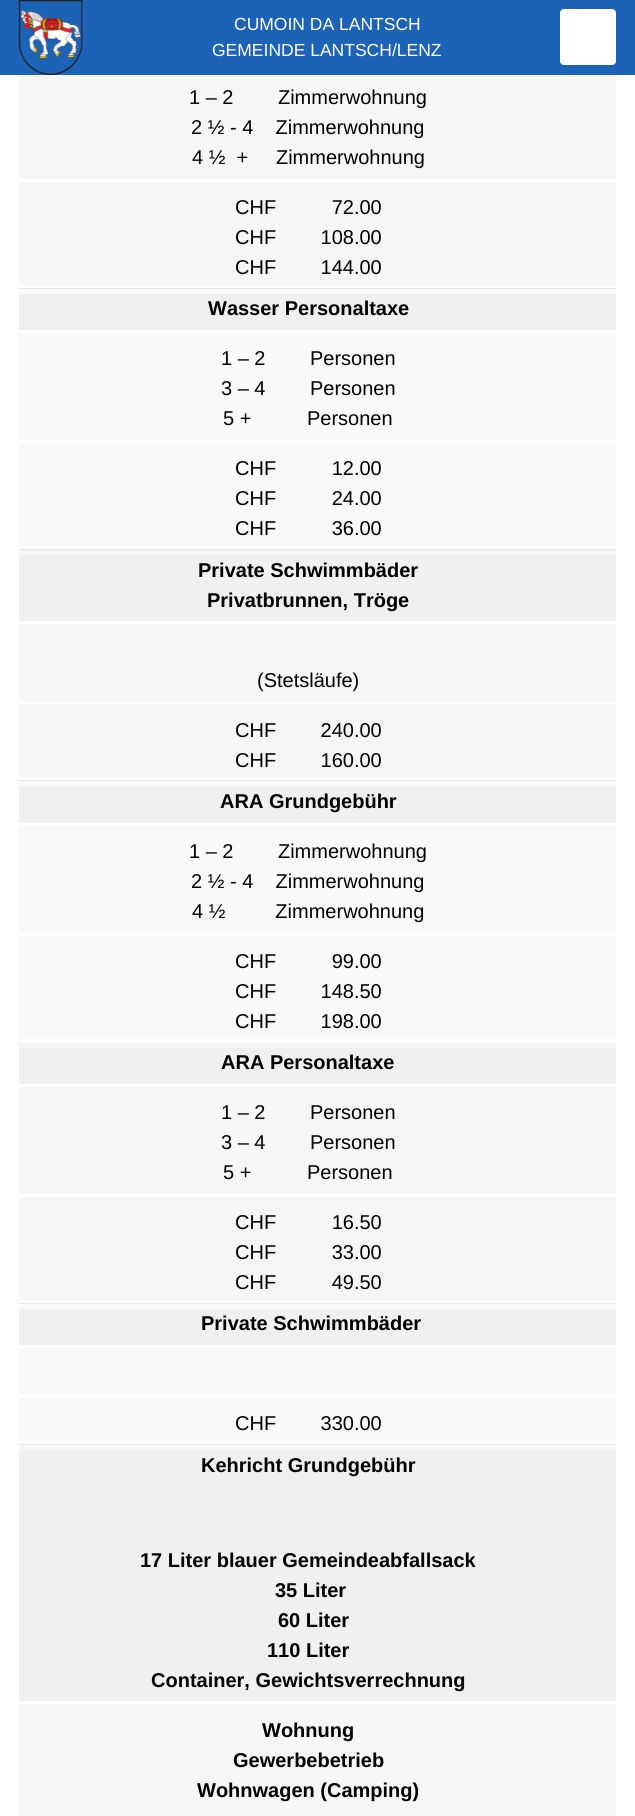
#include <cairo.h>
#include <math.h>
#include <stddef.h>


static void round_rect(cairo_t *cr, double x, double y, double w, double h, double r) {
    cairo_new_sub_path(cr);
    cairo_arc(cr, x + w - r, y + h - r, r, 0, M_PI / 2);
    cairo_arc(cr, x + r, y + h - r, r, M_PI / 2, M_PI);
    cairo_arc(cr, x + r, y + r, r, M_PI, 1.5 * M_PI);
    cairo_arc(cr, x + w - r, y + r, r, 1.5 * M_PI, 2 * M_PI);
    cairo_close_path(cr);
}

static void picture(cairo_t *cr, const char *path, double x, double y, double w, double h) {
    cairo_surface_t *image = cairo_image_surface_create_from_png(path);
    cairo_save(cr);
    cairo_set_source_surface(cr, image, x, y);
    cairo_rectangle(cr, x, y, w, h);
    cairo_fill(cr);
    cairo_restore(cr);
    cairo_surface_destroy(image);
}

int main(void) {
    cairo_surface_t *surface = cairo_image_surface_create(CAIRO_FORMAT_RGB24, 635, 1816);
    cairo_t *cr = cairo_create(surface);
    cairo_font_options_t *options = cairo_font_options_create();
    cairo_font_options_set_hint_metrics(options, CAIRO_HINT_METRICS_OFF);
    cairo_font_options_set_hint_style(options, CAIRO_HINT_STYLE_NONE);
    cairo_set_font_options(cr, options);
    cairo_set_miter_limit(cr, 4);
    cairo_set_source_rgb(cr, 1, 1, 1);
    cairo_paint(cr);
    cairo_set_source_rgb(cr, 0.11, 0.388, 0.718);
    cairo_rectangle(cr, 0, 0, 635, 75);
    cairo_fill(cr);
    picture(cr, "img1.png", 18, 0, 65, 75);
    cairo_select_font_face(cr, "Liberation Sans", CAIRO_FONT_SLANT_NORMAL, CAIRO_FONT_WEIGHT_NORMAL);
    cairo_set_font_size(cr, 17.5);
    cairo_set_source_rgb(cr, 1, 1, 1);
    cairo_move_to(cr, 234, 30);
    cairo_show_text(cr, "CUMOIN DA LANTSCH");
    cairo_move_to(cr, 212, 56);
    cairo_show_text(cr, "GEMEINDE LANTSCH/LENZ");
    round_rect(cr, 560, 9, 56, 56, 4);
    cairo_fill(cr);
    cairo_set_source_rgb(cr, 0.961, 0.961, 0.961);
    cairo_rectangle(cr, 19, 75, 597, 1741);
    cairo_fill(cr);
    cairo_set_source_rgb(cr, 1, 1, 1);
    cairo_rectangle(cr, 19, 179, 597, 3);
    cairo_fill(cr);
    cairo_set_font_size(cr, 20);
    cairo_set_source_rgb(cr, 0, 0, 0);
    cairo_move_to(cr, 189, 104);
    cairo_show_text(cr, "1 – 2        Zimmerwohnung");
    cairo_move_to(cr, 191, 134);
    cairo_show_text(cr, "2 ½ - 4    Zimmerwohnung");
    cairo_move_to(cr, 192, 164);
    cairo_show_text(cr, "4 ½  +     Zimmerwohnung");
    cairo_set_source_rgb(cr, 1, 1, 1);
    cairo_rectangle(cr, 19, 285, 597, 3);
    cairo_fill(cr);
    cairo_set_source_rgb(cr, 0, 0, 0);
    cairo_move_to(cr, 235, 214);
    cairo_show_text(cr, "CHF          72.00");
    cairo_move_to(cr, 235, 244);
    cairo_show_text(cr, "CHF        108.00");
    cairo_move_to(cr, 235, 274);
    cairo_show_text(cr, "CHF        144.00");
    cairo_set_source_rgb(cr, 0.973, 0.973, 0.973);
    cairo_rectangle(cr, 19, 289, 597, 257);
    cairo_fill(cr);
    cairo_set_source_rgb(cr, 0.898, 0.898, 0.898);
    cairo_rectangle(cr, 19, 288, 597, 1);
    cairo_fill(cr);
    cairo_rectangle(cr, 19, 549, 597, 1);
    cairo_fill(cr);
    cairo_set_source_rgb(cr, 0.941, 0.941, 0.941);
    cairo_rectangle(cr, 19, 294, 597, 36);
    cairo_fill(cr);
    cairo_set_source_rgb(cr, 1, 1, 1);
    cairo_rectangle(cr, 19, 330, 597, 3);
    cairo_fill(cr);
    cairo_select_font_face(cr, "Liberation Sans", CAIRO_FONT_SLANT_NORMAL, CAIRO_FONT_WEIGHT_BOLD);
    cairo_set_source_rgb(cr, 0, 0, 0);
    cairo_move_to(cr, 208, 315);
    cairo_show_text(cr, "Wasser Personaltaxe");
    cairo_set_source_rgb(cr, 1, 1, 1);
    cairo_rectangle(cr, 19, 440, 597, 3);
    cairo_fill(cr);
    cairo_select_font_face(cr, "Liberation Sans", CAIRO_FONT_SLANT_NORMAL, CAIRO_FONT_WEIGHT_NORMAL);
    cairo_set_source_rgb(cr, 0, 0, 0);
    cairo_move_to(cr, 221, 365);
    cairo_show_text(cr, "1 – 2        Personen");
    cairo_move_to(cr, 221, 395);
    cairo_show_text(cr, "3 – 4        Personen");
    cairo_move_to(cr, 223, 425);
    cairo_show_text(cr, "5 +          Personen");
    cairo_set_source_rgb(cr, 1, 1, 1);
    cairo_rectangle(cr, 19, 546, 597, 3);
    cairo_fill(cr);
    cairo_set_source_rgb(cr, 0, 0, 0);
    cairo_move_to(cr, 235, 475);
    cairo_show_text(cr, "CHF          12.00");
    cairo_move_to(cr, 235, 505);
    cairo_show_text(cr, "CHF          24.00");
    cairo_move_to(cr, 235, 535);
    cairo_show_text(cr, "CHF          36.00");
    cairo_set_source_rgb(cr, 0.941, 0.941, 0.941);
    cairo_rectangle(cr, 19, 555, 597, 66);
    cairo_fill(cr);
    cairo_set_source_rgb(cr, 1, 1, 1);
    cairo_rectangle(cr, 19, 621, 597, 3);
    cairo_fill(cr);
    cairo_select_font_face(cr, "Liberation Sans", CAIRO_FONT_SLANT_NORMAL, CAIRO_FONT_WEIGHT_BOLD);
    cairo_set_source_rgb(cr, 0, 0, 0);
    cairo_move_to(cr, 198, 577);
    cairo_show_text(cr, "Private Schwimmbäder");
    cairo_move_to(cr, 207, 607);
    cairo_show_text(cr, "Privatbrunnen, Tröge");
    cairo_set_source_rgb(cr, 1, 1, 1);
    cairo_rectangle(cr, 19, 701, 597, 3);
    cairo_fill(cr);
    cairo_select_font_face(cr, "Liberation Sans", CAIRO_FONT_SLANT_NORMAL, CAIRO_FONT_WEIGHT_NORMAL);
    cairo_set_source_rgb(cr, 0, 0, 0);
    cairo_move_to(cr, 257, 687);
    cairo_show_text(cr, "(Stetsläufe)");
    cairo_set_source_rgb(cr, 1, 1, 1);
    cairo_rectangle(cr, 19, 778, 597, 2);
    cairo_fill(cr);
    cairo_set_source_rgb(cr, 0, 0, 0);
    cairo_move_to(cr, 235, 737);
    cairo_show_text(cr, "CHF        240.00");
    cairo_move_to(cr, 235, 767);
    cairo_show_text(cr, "CHF        160.00");
    cairo_set_source_rgb(cr, 0.973, 0.973, 0.973);
    cairo_rectangle(cr, 19, 781, 597, 262);
    cairo_fill(cr);
    cairo_set_source_rgb(cr, 0.898, 0.898, 0.898);
    cairo_rectangle(cr, 19, 780, 597, 1);
    cairo_fill(cr);
    cairo_set_source_rgb(cr, 0.941, 0.941, 0.941);
    cairo_rectangle(cr, 19, 786, 597, 37);
    cairo_fill(cr);
    cairo_set_source_rgb(cr, 1, 1, 1);
    cairo_rectangle(cr, 19, 823, 597, 3);
    cairo_fill(cr);
    cairo_select_font_face(cr, "Liberation Sans", CAIRO_FONT_SLANT_NORMAL, CAIRO_FONT_WEIGHT_BOLD);
    cairo_set_source_rgb(cr, 0, 0, 0);
    cairo_move_to(cr, 220, 808);
    cairo_show_text(cr, "ARA Grundgebühr");
    cairo_set_source_rgb(cr, 1, 1, 1);
    cairo_rectangle(cr, 19, 933, 597, 3);
    cairo_fill(cr);
    cairo_select_font_face(cr, "Liberation Sans", CAIRO_FONT_SLANT_NORMAL, CAIRO_FONT_WEIGHT_NORMAL);
    cairo_set_source_rgb(cr, 0, 0, 0);
    cairo_move_to(cr, 189, 858);
    cairo_show_text(cr, "1 – 2        Zimmerwohnung");
    cairo_move_to(cr, 191, 888);
    cairo_show_text(cr, "2 ½ - 4    Zimmerwohnung");
    cairo_move_to(cr, 192, 918);
    cairo_show_text(cr, "4 ½         Zimmerwohnung");
    cairo_set_source_rgb(cr, 1, 1, 1);
    cairo_rectangle(cr, 19, 1039, 597, 3);
    cairo_fill(cr);
    cairo_set_source_rgb(cr, 0, 0, 0);
    cairo_move_to(cr, 235, 968);
    cairo_show_text(cr, "CHF          99.00");
    cairo_move_to(cr, 235, 998);
    cairo_show_text(cr, "CHF        148.50");
    cairo_move_to(cr, 235, 1028);
    cairo_show_text(cr, "CHF        198.00");
    cairo_set_source_rgb(cr, 0.941, 0.941, 0.941);
    cairo_rectangle(cr, 19, 1048, 597, 36);
    cairo_fill(cr);
    cairo_set_source_rgb(cr, 1, 1, 1);
    cairo_rectangle(cr, 19, 1084, 597, 3);
    cairo_fill(cr);
    cairo_select_font_face(cr, "Liberation Sans", CAIRO_FONT_SLANT_NORMAL, CAIRO_FONT_WEIGHT_BOLD);
    cairo_set_source_rgb(cr, 0, 0, 0);
    cairo_move_to(cr, 221, 1069);
    cairo_show_text(cr, "ARA Personaltaxe");
    cairo_set_source_rgb(cr, 1, 1, 1);
    cairo_rectangle(cr, 19, 1194, 597, 3);
    cairo_fill(cr);
    cairo_select_font_face(cr, "Liberation Sans", CAIRO_FONT_SLANT_NORMAL, CAIRO_FONT_WEIGHT_NORMAL);
    cairo_set_source_rgb(cr, 0, 0, 0);
    cairo_move_to(cr, 221, 1119);
    cairo_show_text(cr, "1 – 2        Personen");
    cairo_move_to(cr, 221, 1149);
    cairo_show_text(cr, "3 – 4        Personen");
    cairo_move_to(cr, 223, 1179);
    cairo_show_text(cr, "5 +          Personen");
    cairo_set_source_rgb(cr, 1, 1, 1);
    cairo_rectangle(cr, 19, 1300, 597, 3);
    cairo_fill(cr);
    cairo_set_source_rgb(cr, 0, 0, 0);
    cairo_move_to(cr, 235, 1229);
    cairo_show_text(cr, "CHF          16.50");
    cairo_move_to(cr, 235, 1259);
    cairo_show_text(cr, "CHF          33.00");
    cairo_move_to(cr, 235, 1289);
    cairo_show_text(cr, "CHF          49.50");
    cairo_set_source_rgb(cr, 0.973, 0.973, 0.973);
    cairo_rectangle(cr, 19, 1304, 597, 137);
    cairo_fill(cr);
    cairo_set_source_rgb(cr, 0.898, 0.898, 0.898);
    cairo_rectangle(cr, 19, 1303, 597, 1);
    cairo_fill(cr);
    cairo_rectangle(cr, 19, 1444, 597, 1);
    cairo_fill(cr);
    cairo_set_source_rgb(cr, 0.941, 0.941, 0.941);
    cairo_rectangle(cr, 19, 1309, 597, 36);
    cairo_fill(cr);
    cairo_set_source_rgb(cr, 1, 1, 1);
    cairo_rectangle(cr, 19, 1345, 597, 3);
    cairo_fill(cr);
    cairo_select_font_face(cr, "Liberation Sans", CAIRO_FONT_SLANT_NORMAL, CAIRO_FONT_WEIGHT_BOLD);
    cairo_set_source_rgb(cr, 0, 0, 0);
    cairo_move_to(cr, 201, 1330);
    cairo_show_text(cr, "Private Schwimmbäder");
    cairo_set_source_rgb(cr, 1, 1, 1);
    cairo_rectangle(cr, 19, 1395, 597, 3);
    cairo_fill(cr);
    cairo_rectangle(cr, 19, 1441, 597, 3);
    cairo_fill(cr);
    cairo_select_font_face(cr, "Liberation Sans", CAIRO_FONT_SLANT_NORMAL, CAIRO_FONT_WEIGHT_NORMAL);
    cairo_set_source_rgb(cr, 0, 0, 0);
    cairo_move_to(cr, 235, 1430);
    cairo_show_text(cr, "CHF        330.00");
    cairo_set_source_rgb(cr, 0.941, 0.941, 0.941);
    cairo_rectangle(cr, 19, 1450, 597, 251);
    cairo_fill(cr);
    cairo_set_source_rgb(cr, 1, 1, 1);
    cairo_rectangle(cr, 19, 1701, 597, 3);
    cairo_fill(cr);
    cairo_select_font_face(cr, "Liberation Sans", CAIRO_FONT_SLANT_NORMAL, CAIRO_FONT_WEIGHT_BOLD);
    cairo_set_source_rgb(cr, 0, 0, 0);
    cairo_move_to(cr, 201, 1472);
    cairo_show_text(cr, "Kehricht Grundgebühr");
    cairo_move_to(cr, 140, 1567);
    cairo_show_text(cr, "17 Liter blauer Gemeindeabfallsack");
    cairo_move_to(cr, 275, 1597);
    cairo_show_text(cr, "35 Liter");
    cairo_move_to(cr, 278, 1627);
    cairo_show_text(cr, "60 Liter");
    cairo_move_to(cr, 267, 1657);
    cairo_show_text(cr, "110 Liter");
    cairo_move_to(cr, 151, 1687);
    cairo_show_text(cr, "Container, Gewichtsverrechnung");
    cairo_move_to(cr, 262, 1737);
    cairo_show_text(cr, "Wohnung");
    cairo_move_to(cr, 233, 1767);
    cairo_show_text(cr, "Gewerbebetrieb");
    cairo_move_to(cr, 197, 1797);
    cairo_show_text(cr, "Wohnwagen (Camping)");
    cairo_surface_write_to_png(surface, "page.png");
    cairo_font_options_destroy(options);
    cairo_destroy(cr);
    cairo_surface_destroy(surface);
    return 0;
}
